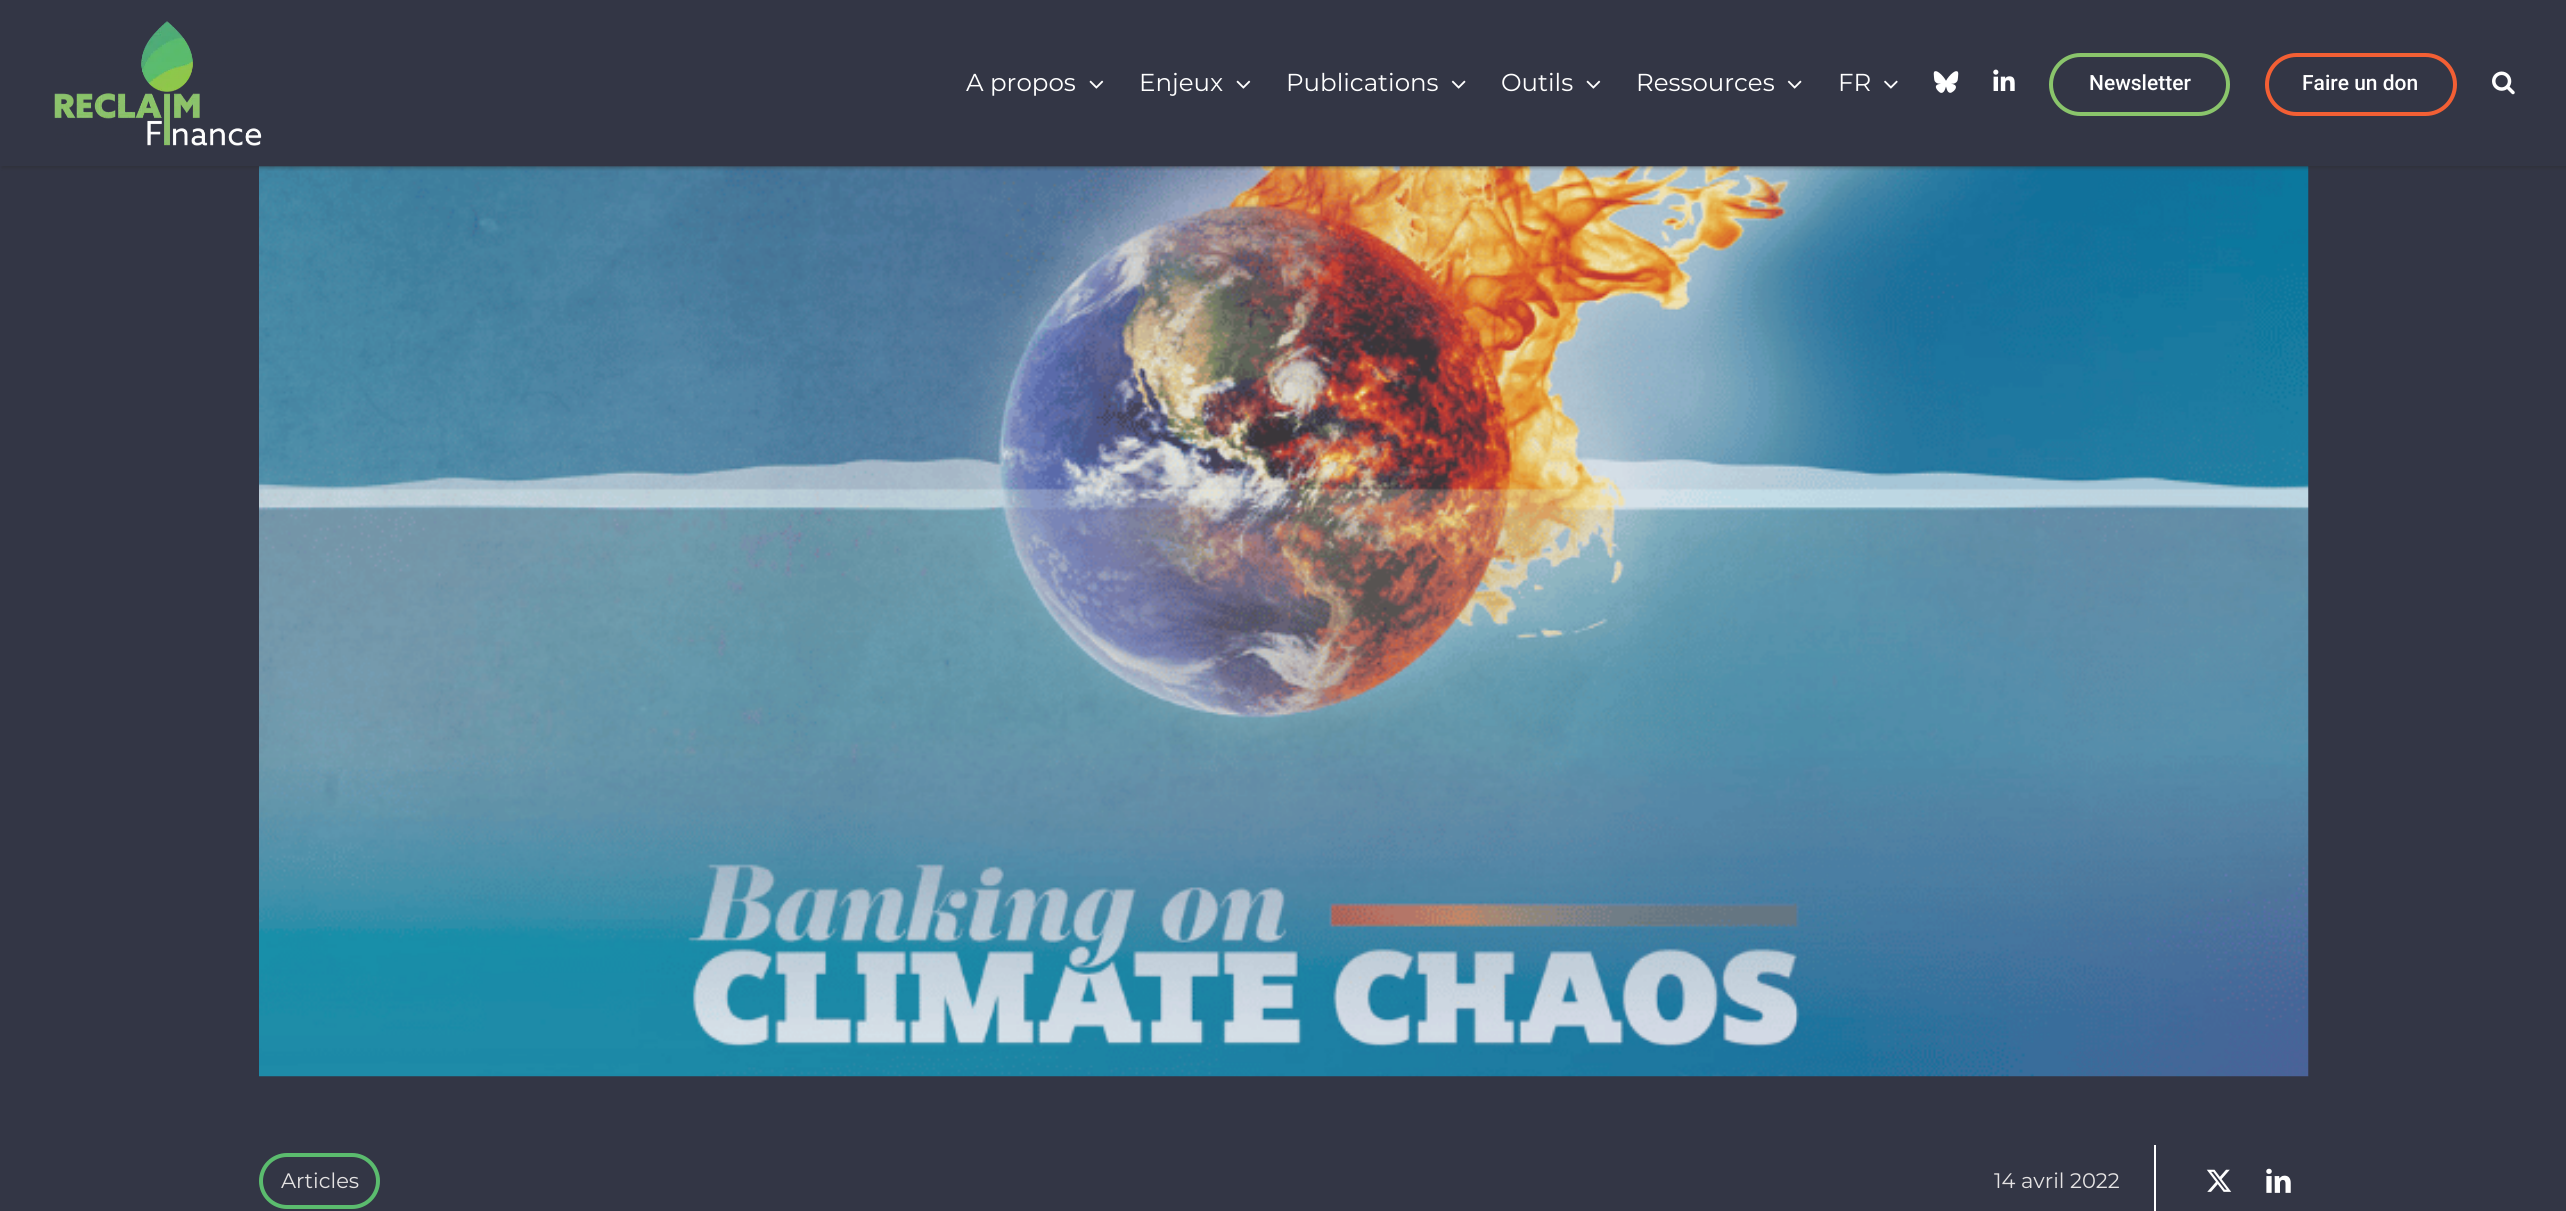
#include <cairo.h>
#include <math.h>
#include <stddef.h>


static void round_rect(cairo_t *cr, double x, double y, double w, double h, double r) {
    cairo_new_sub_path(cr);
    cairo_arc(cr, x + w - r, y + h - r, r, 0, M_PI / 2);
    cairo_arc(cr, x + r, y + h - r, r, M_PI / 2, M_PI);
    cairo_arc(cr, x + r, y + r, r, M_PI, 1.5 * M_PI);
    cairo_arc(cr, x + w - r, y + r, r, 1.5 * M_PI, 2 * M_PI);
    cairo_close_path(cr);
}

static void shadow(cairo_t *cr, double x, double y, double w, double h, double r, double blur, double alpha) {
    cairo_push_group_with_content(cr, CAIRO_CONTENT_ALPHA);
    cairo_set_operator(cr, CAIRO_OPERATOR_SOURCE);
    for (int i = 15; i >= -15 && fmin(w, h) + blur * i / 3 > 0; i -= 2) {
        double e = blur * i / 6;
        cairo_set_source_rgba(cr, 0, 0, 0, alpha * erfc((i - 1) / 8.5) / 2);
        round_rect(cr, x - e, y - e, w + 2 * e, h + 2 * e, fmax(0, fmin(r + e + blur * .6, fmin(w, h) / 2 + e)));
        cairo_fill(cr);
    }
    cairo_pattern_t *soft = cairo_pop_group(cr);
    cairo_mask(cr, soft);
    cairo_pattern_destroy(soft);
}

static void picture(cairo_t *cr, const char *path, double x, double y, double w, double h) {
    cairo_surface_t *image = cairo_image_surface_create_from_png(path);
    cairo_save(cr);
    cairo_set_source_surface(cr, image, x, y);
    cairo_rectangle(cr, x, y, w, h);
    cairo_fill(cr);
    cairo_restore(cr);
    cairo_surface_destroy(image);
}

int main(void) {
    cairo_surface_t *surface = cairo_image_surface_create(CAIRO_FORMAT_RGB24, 2566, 1211);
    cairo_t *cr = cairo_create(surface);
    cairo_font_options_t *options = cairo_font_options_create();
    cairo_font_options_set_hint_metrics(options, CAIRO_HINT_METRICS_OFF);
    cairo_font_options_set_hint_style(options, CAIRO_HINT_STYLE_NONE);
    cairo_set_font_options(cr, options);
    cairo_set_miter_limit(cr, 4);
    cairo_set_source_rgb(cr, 0.2, 0.212, 0.271);
    cairo_paint(cr);
    picture(cr, "img8.png", 259, 166, 2050, 911);
    cairo_save(cr);
    cairo_rectangle(cr, 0, 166, 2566, 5);
    cairo_clip(cr);
    cairo_set_source_rgb(cr, 0.161, 0.161, 0.165);
    shadow(cr, 2, 2, 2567, 166, 0, 2, 0.41);
    cairo_restore(cr);
    picture(cr, "img1.png", 54, 21, 208, 125);
    cairo_select_font_face(cr, "Montserrat", CAIRO_FONT_SLANT_NORMAL, CAIRO_FONT_WEIGHT_NORMAL);
    cairo_set_font_size(cr, 24.5);
    cairo_set_source_rgb(cr, 1, 1, 1);
    cairo_move_to(cr, 966, 91);
    cairo_show_text(cr, "A propos");
    picture(cr, "img2.png", 1089, 80, 15, 9);
    cairo_move_to(cr, 1139, 91);
    cairo_show_text(cr, "Enjeux");
    picture(cr, "img2.png", 1236, 80, 15, 9);
    cairo_move_to(cr, 1286, 91);
    cairo_show_text(cr, "Publications");
    picture(cr, "img3.png", 1451, 80, 15, 9);
    cairo_move_to(cr, 1501, 91);
    cairo_show_text(cr, "Outils");
    picture(cr, "img2.png", 1586, 80, 15, 9);
    cairo_move_to(cr, 1636, 91);
    cairo_show_text(cr, "Ressources");
    picture(cr, "img3.png", 1787, 80, 15, 9);
    cairo_move_to(cr, 1838, 91);
    cairo_show_text(cr, "FR");
    picture(cr, "img4.png", 1884, 80, 14, 9);
    picture(cr, "img5.png", 1933, 71, 26, 22);
    picture(cr, "img6.png", 1993, 69, 22, 22);
    round_rect(cr, 2051, 55, 177, 59, 29.5);
    cairo_set_source_rgb(cr, 0.541, 0.773, 0.42);
    cairo_set_line_width(cr, 4);
    cairo_stroke(cr);
    cairo_select_font_face(cr, "Roboto Medium", CAIRO_FONT_SLANT_NORMAL, CAIRO_FONT_WEIGHT_NORMAL);
    cairo_set_font_size(cr, 21);
    cairo_set_source_rgb(cr, 1, 1, 1);
    cairo_move_to(cr, 2089, 90);
    cairo_show_text(cr, "Newsletter");
    round_rect(cr, 2267, 55, 188, 59, 29.5);
    cairo_set_source_rgb(cr, 0.953, 0.373, 0.204);
    cairo_stroke(cr);
    cairo_set_source_rgb(cr, 1, 1, 1);
    cairo_move_to(cr, 2302, 90);
    cairo_show_text(cr, "Faire un don");
    picture(cr, "img7.png", 2492, 71, 23, 24);
    round_rect(cr, 261, 1155, 117, 52, 26);
    cairo_set_source_rgb(cr, 0.357, 0.737, 0.431);
    cairo_stroke(cr);
    cairo_select_font_face(cr, "Montserrat", CAIRO_FONT_SLANT_NORMAL, CAIRO_FONT_WEIGHT_NORMAL);
    cairo_set_source_rgb(cr, 0.898, 0.89, 0.89);
    cairo_move_to(cr, 281, 1188);
    cairo_show_text(cr, "Articles");
    cairo_set_source_rgb(cr, 1, 1, 1);
    cairo_rectangle(cr, 2154, 1145, 2, 66);
    cairo_fill(cr);
    cairo_set_source_rgb(cr, 0.898, 0.89, 0.89);
    cairo_move_to(cr, 1994, 1188);
    cairo_show_text(cr, "14 avril 2022");
    picture(cr, "img9.png", 2206, 1169, 26, 23);
    picture(cr, "img10.png", 2266, 1168, 25, 25);
    cairo_surface_write_to_png(surface, "page.png");
    cairo_font_options_destroy(options);
    cairo_destroy(cr);
    cairo_surface_destroy(surface);
    return 0;
}
